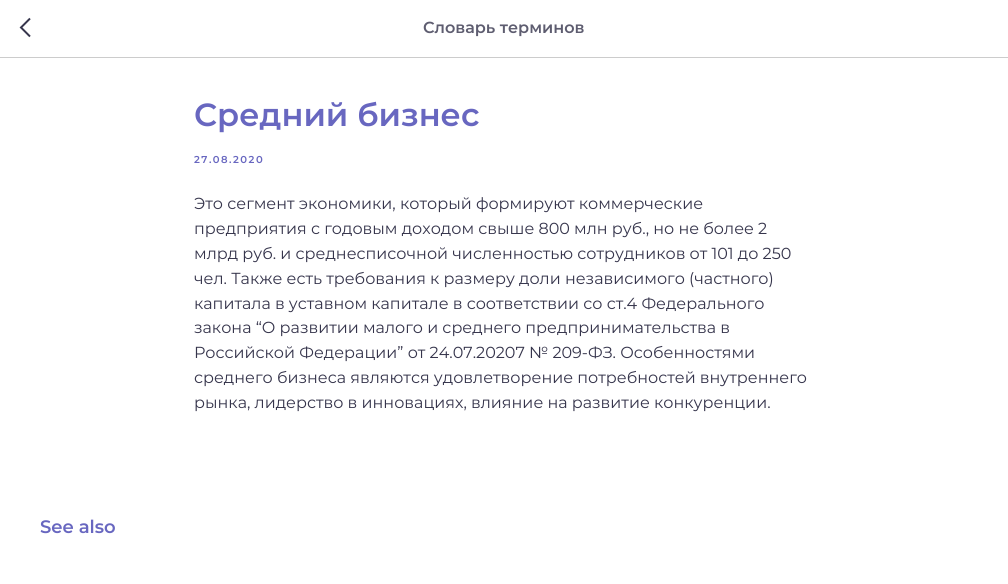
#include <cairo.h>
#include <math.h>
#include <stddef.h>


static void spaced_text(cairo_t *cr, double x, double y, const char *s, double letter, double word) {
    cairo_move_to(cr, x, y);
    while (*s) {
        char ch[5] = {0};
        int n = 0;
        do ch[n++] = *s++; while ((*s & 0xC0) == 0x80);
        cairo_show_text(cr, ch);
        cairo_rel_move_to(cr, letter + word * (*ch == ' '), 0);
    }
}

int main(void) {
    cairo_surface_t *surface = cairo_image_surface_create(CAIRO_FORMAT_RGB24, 1008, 584);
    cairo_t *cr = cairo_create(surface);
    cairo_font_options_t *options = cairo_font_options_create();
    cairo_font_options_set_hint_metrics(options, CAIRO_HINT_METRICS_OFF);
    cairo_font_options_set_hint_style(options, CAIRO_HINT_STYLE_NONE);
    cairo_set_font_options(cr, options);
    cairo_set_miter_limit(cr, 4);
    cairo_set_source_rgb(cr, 1, 1, 1);
    cairo_paint(cr);
    cairo_set_source_rgb(cr, 0.8, 0.8, 0.8);
    cairo_rectangle(cr, 0, 57, 1008, 1);
    cairo_fill(cr);
    cairo_new_path(cr);
    cairo_move_to(cr, 30, 36.5);
    cairo_line_to(cr, 21, 27.5);
    cairo_line_to(cr, 30, 18.5);
    cairo_set_source_rgb(cr, 0.212, 0.208, 0.298);
    cairo_stroke(cr);
    cairo_select_font_face(cr, "Montserrat SemiBold", CAIRO_FONT_SLANT_NORMAL, CAIRO_FONT_WEIGHT_NORMAL);
    cairo_set_font_size(cr, 16);
    cairo_set_source_rgb(cr, 0.369, 0.365, 0.439);
    cairo_move_to(cr, 423, 33);
    cairo_show_text(cr, "Словарь терминов");
    cairo_set_font_size(cr, 32);
    cairo_set_source_rgb(cr, 0.408, 0.404, 0.753);
    cairo_move_to(cr, 194, 126);
    cairo_show_text(cr, "Средний бизнес");
    cairo_set_font_size(cr, 10);
    spaced_text(cr, 194, 163, "27.08.2020", 1.5, 0);
    cairo_select_font_face(cr, "Montserrat", CAIRO_FONT_SLANT_NORMAL, CAIRO_FONT_WEIGHT_NORMAL);
    cairo_set_font_size(cr, 16);
    cairo_set_source_rgb(cr, 0.212, 0.208, 0.298);
    cairo_move_to(cr, 194, 209);
    cairo_show_text(cr, "Это сегмент экономики, который формируют коммерческие");
    cairo_move_to(cr, 194, 234);
    cairo_show_text(cr, "предприятия с годовым доходом свыше 800 млн руб., но не более 2");
    cairo_move_to(cr, 194, 259);
    cairo_show_text(cr, "млрд руб. и среднесписочной численностью сотрудников от 101 до 250");
    cairo_move_to(cr, 194, 284);
    cairo_show_text(cr, "чел. Также есть требования к размеру доли независимого (частного)");
    cairo_move_to(cr, 194, 309);
    cairo_show_text(cr, "капитала в уставном капитале в соответствии со ст.4 Федерального");
    cairo_move_to(cr, 194, 333);
    cairo_show_text(cr, "закона “О развитии малого и среднего предпринимательства в");
    cairo_move_to(cr, 194, 358);
    cairo_show_text(cr, "Российской Федерации” от 24.07.20207 № 209-ФЗ. Особенностями");
    cairo_move_to(cr, 194, 383);
    cairo_show_text(cr, "среднего бизнеса являются удовлетворение потребностей внутреннего");
    cairo_move_to(cr, 194, 408);
    cairo_show_text(cr, "рынка, лидерство в инновациях, влияние на развитие конкуренции.");
    cairo_select_font_face(cr, "Montserrat SemiBold", CAIRO_FONT_SLANT_NORMAL, CAIRO_FONT_WEIGHT_NORMAL);
    cairo_set_font_size(cr, 18);
    cairo_set_source_rgb(cr, 0.408, 0.404, 0.753);
    cairo_move_to(cr, 40, 533);
    cairo_show_text(cr, "See also");
    cairo_surface_write_to_png(surface, "page.png");
    cairo_font_options_destroy(options);
    cairo_destroy(cr);
    cairo_surface_destroy(surface);
    return 0;
}
